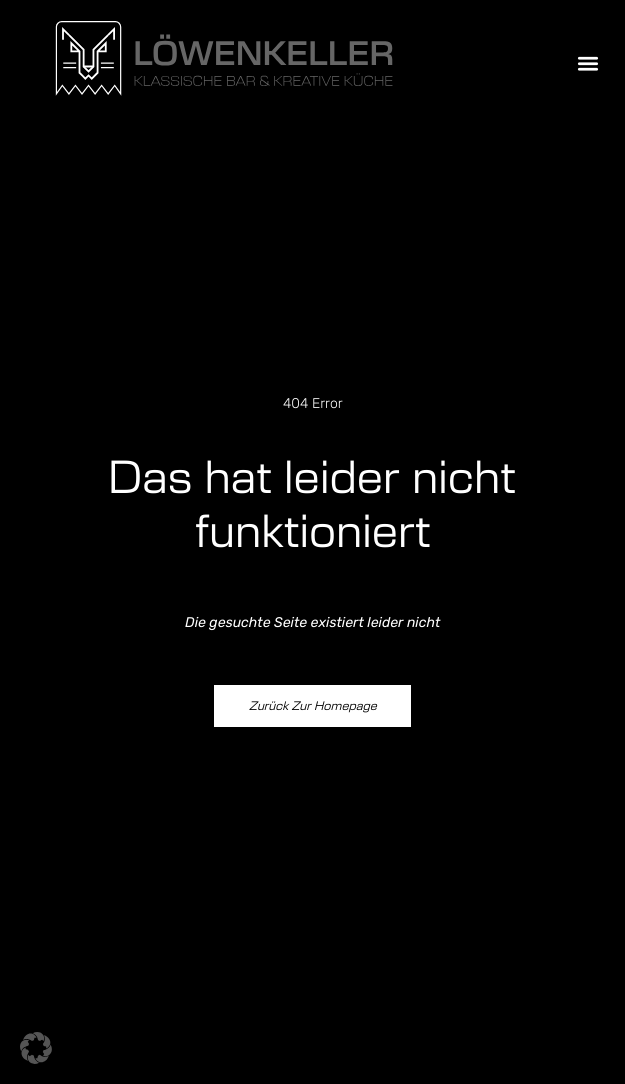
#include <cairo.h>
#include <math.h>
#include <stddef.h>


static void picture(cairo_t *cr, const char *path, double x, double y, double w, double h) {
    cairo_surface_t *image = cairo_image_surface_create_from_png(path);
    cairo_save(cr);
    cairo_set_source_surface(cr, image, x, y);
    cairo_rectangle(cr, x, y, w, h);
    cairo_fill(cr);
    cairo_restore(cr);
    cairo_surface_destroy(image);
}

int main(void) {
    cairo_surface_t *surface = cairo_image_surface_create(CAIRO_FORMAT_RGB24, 625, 1084);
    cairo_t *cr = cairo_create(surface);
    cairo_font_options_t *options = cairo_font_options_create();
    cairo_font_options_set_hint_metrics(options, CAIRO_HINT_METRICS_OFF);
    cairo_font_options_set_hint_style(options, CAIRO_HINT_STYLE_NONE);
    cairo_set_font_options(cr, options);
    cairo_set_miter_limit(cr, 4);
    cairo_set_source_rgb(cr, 0, 0, 0);
    cairo_paint(cr);
    picture(cr, "img1.png", 55, 21, 338, 75);
    picture(cr, "img2.png", 577, 56, 22, 15);
    cairo_select_font_face(cr, "Rubik Light", CAIRO_FONT_SLANT_NORMAL, CAIRO_FONT_WEIGHT_NORMAL);
    cairo_set_font_size(cr, 14);
    cairo_set_source_rgb(cr, 1, 1, 1);
    cairo_move_to(cr, 283, 408);
    cairo_show_text(cr, "404 Error");
    cairo_select_font_face(cr, "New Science", CAIRO_FONT_SLANT_NORMAL, CAIRO_FONT_WEIGHT_NORMAL);
    cairo_set_font_size(cr, 45);
    cairo_move_to(cr, 108, 493);
    cairo_show_text(cr, "Das hat leider nicht");
    cairo_move_to(cr, 195, 547);
    cairo_show_text(cr, "funktioniert");
    cairo_select_font_face(cr, "Rubik", CAIRO_FONT_SLANT_ITALIC, CAIRO_FONT_WEIGHT_NORMAL);
    cairo_set_font_size(cr, 14);
    cairo_move_to(cr, 185, 627);
    cairo_show_text(cr, "Die gesuchte Seite existiert leider nicht");
    cairo_rectangle(cr, 214, 685, 197, 42);
    cairo_fill(cr);
    cairo_select_font_face(cr, "New Science", CAIRO_FONT_SLANT_ITALIC, CAIRO_FONT_WEIGHT_NORMAL);
    cairo_set_font_size(cr, 12);
    cairo_set_source_rgb(cr, 0, 0, 0);
    cairo_move_to(cr, 249, 710);
    cairo_show_text(cr, "Zurück Zur Homepage");
    picture(cr, "img3.png", 20, 1032, 32, 32);
    cairo_surface_write_to_png(surface, "page.png");
    cairo_font_options_destroy(options);
    cairo_destroy(cr);
    cairo_surface_destroy(surface);
    return 0;
}
